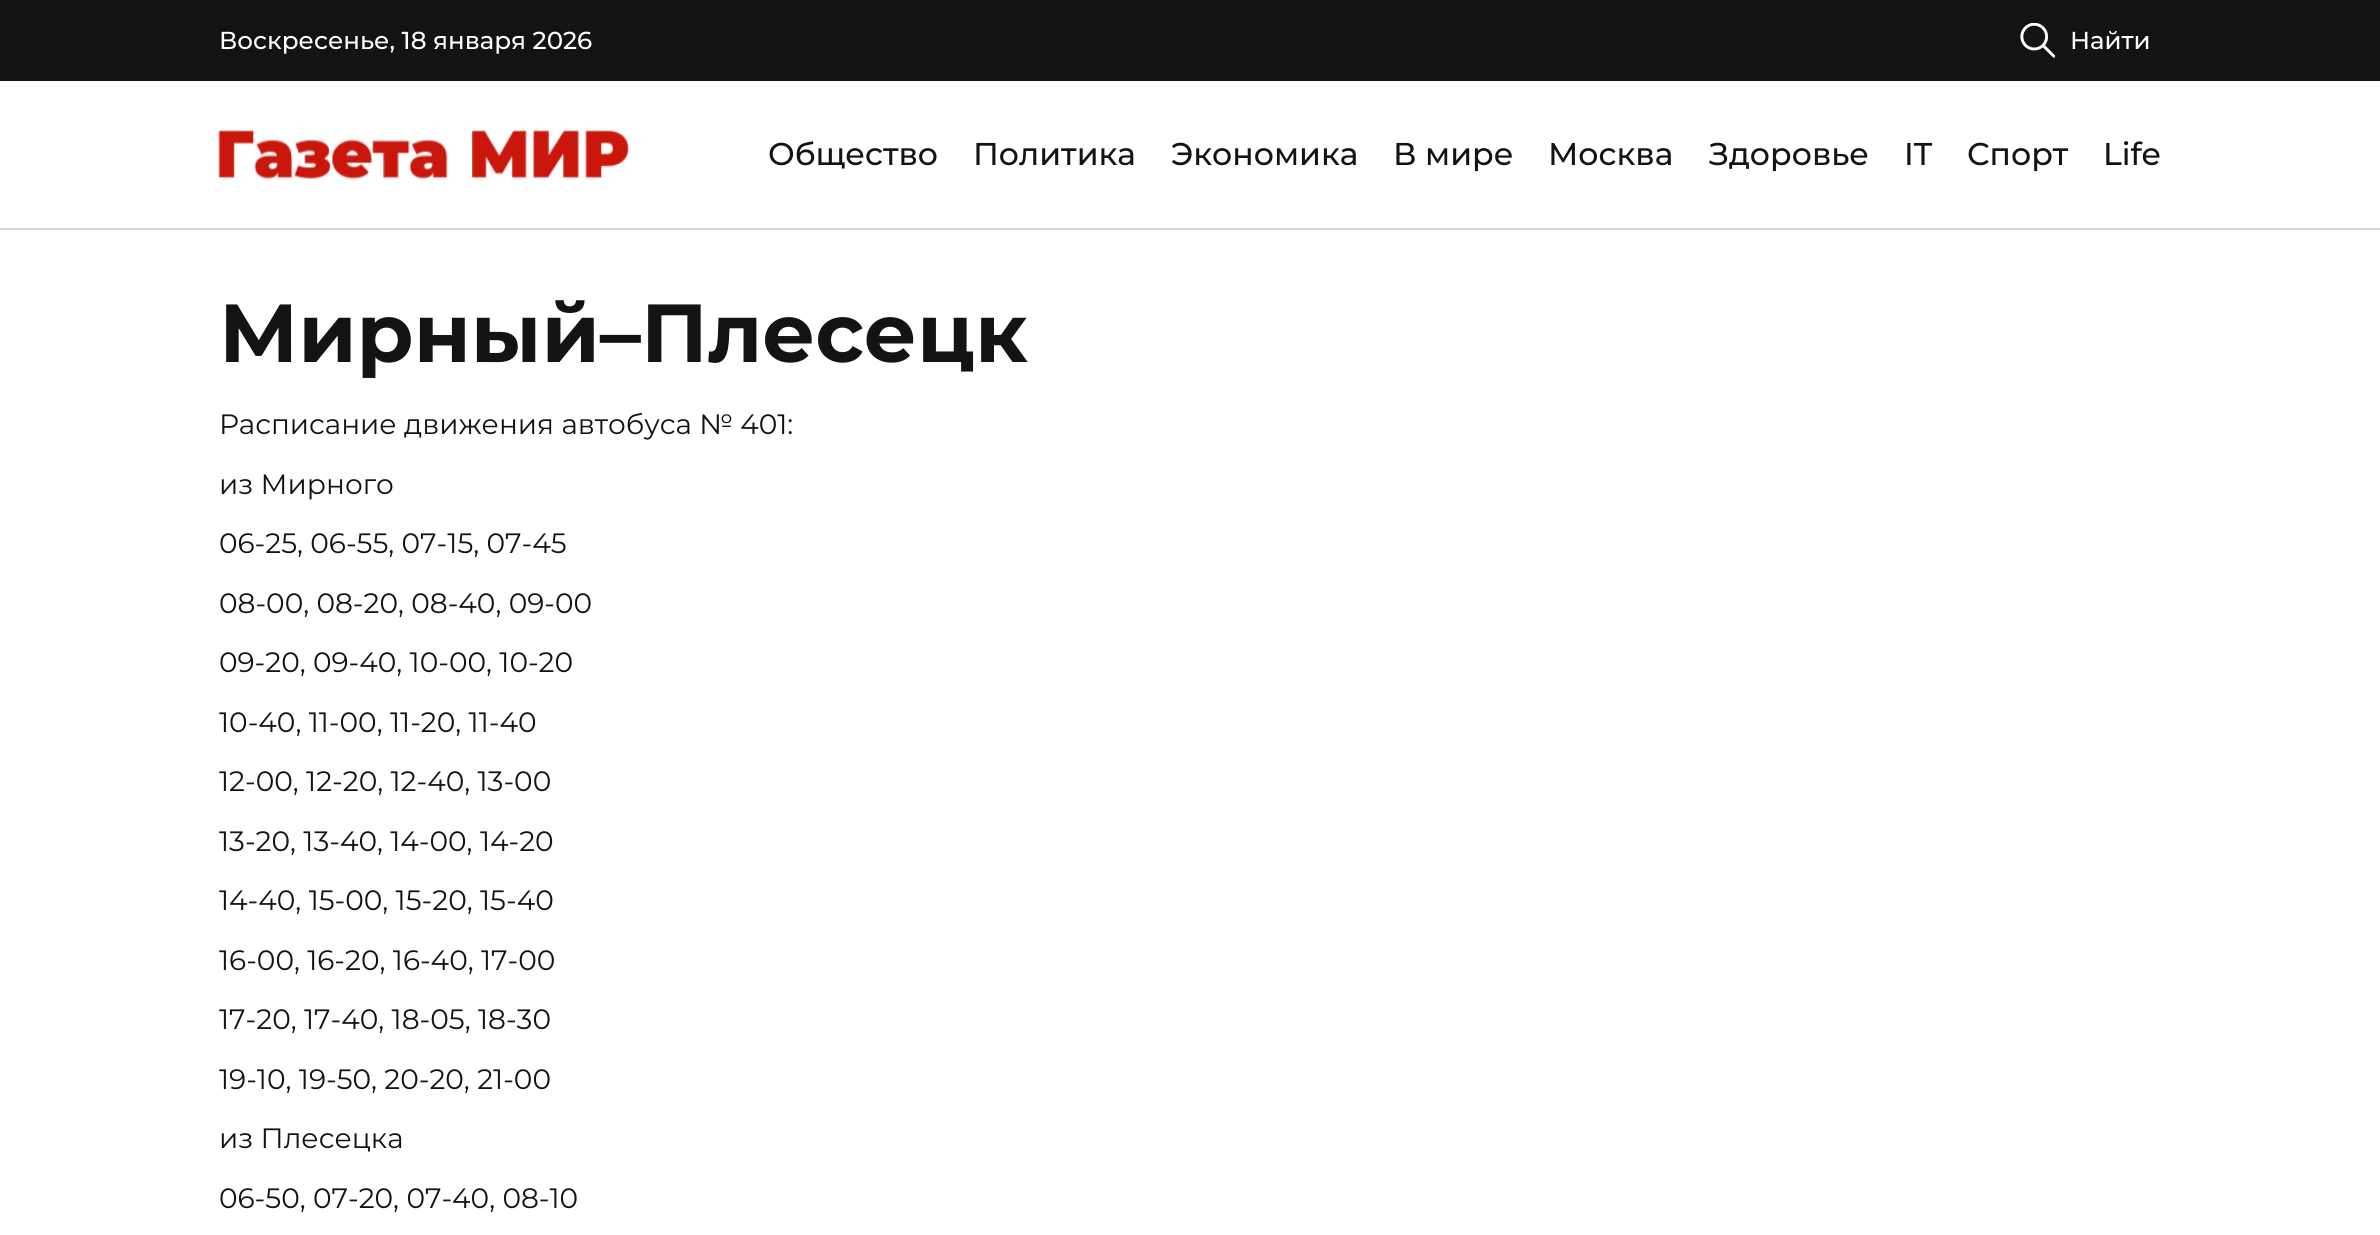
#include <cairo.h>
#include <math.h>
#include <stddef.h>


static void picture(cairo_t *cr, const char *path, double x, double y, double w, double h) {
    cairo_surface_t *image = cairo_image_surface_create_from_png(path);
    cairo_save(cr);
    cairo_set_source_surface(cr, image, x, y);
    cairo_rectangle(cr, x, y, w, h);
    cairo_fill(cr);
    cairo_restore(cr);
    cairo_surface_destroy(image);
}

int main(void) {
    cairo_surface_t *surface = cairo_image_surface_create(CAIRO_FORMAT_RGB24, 2380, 1235);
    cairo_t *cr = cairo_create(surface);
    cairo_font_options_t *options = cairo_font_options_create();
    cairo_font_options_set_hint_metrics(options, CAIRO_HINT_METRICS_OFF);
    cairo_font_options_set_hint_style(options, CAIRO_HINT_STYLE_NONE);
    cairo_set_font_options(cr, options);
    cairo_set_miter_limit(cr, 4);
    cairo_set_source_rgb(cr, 1, 1, 1);
    cairo_paint(cr);
    cairo_set_source_rgb(cr, 0.82, 0.835, 0.859);
    cairo_rectangle(cr, 0, 228, 2380, 2);
    cairo_fill(cr);
    cairo_set_source_rgb(cr, 0.075, 0.075, 0.075);
    cairo_rectangle(cr, 0, 0, 2380, 81);
    cairo_fill(cr);
    cairo_select_font_face(cr, "Montserrat Medium", CAIRO_FONT_SLANT_NORMAL, CAIRO_FONT_WEIGHT_NORMAL);
    cairo_set_font_size(cr, 24.5);
    cairo_set_source_rgb(cr, 1, 1, 1);
    cairo_move_to(cr, 219, 49);
    cairo_show_text(cr, "Воскресенье, 18 января 2026");
    picture(cr, "img1.png", 2020, 23, 35, 35);
    cairo_move_to(cr, 2070, 49);
    cairo_show_text(cr, "Найти");
    picture(cr, "img2.png", 218, 130, 411, 49);
    cairo_set_font_size(cr, 31.5);
    cairo_set_source_rgb(cr, 0.075, 0.075, 0.075);
    cairo_move_to(cr, 768, 165);
    cairo_show_text(cr, "Общество");
    cairo_move_to(cr, 973, 165);
    cairo_show_text(cr, "Политика");
    cairo_move_to(cr, 1171, 165);
    cairo_show_text(cr, "Экономика");
    cairo_move_to(cr, 1393, 165);
    cairo_show_text(cr, "В мире");
    cairo_move_to(cr, 1548, 165);
    cairo_show_text(cr, "Москва");
    cairo_move_to(cr, 1709, 165);
    cairo_show_text(cr, "Здоровье");
    cairo_move_to(cr, 1904, 165);
    cairo_show_text(cr, "IT");
    cairo_move_to(cr, 1967, 165);
    cairo_show_text(cr, "Спорт");
    cairo_move_to(cr, 2103, 165);
    cairo_show_text(cr, "Life");
    cairo_select_font_face(cr, "Montserrat", CAIRO_FONT_SLANT_NORMAL, CAIRO_FONT_WEIGHT_BOLD);
    cairo_set_font_size(cr, 82.25);
    cairo_move_to(cr, 219, 362);
    cairo_show_text(cr, "Мирный–Плесецк");
    cairo_select_font_face(cr, "Montserrat", CAIRO_FONT_SLANT_NORMAL, CAIRO_FONT_WEIGHT_NORMAL);
    cairo_set_font_size(cr, 28);
    cairo_move_to(cr, 219, 434);
    cairo_show_text(cr, "Расписание движения автобуса № 401:");
    cairo_move_to(cr, 219, 494);
    cairo_show_text(cr, "из Мирного");
    cairo_move_to(cr, 219, 553);
    cairo_show_text(cr, "06-25, 06-55, 07-15, 07-45");
    cairo_move_to(cr, 219, 613);
    cairo_show_text(cr, "08-00, 08-20, 08-40, 09-00");
    cairo_move_to(cr, 219, 672);
    cairo_show_text(cr, "09-20, 09-40, 10-00, 10-20");
    cairo_move_to(cr, 219, 732);
    cairo_show_text(cr, "10-40, 11-00, 11-20, 11-40");
    cairo_move_to(cr, 219, 791);
    cairo_show_text(cr, "12-00, 12-20, 12-40, 13-00");
    cairo_move_to(cr, 219, 851);
    cairo_show_text(cr, "13-20, 13-40, 14-00, 14-20");
    cairo_move_to(cr, 219, 910);
    cairo_show_text(cr, "14-40, 15-00, 15-20, 15-40");
    cairo_move_to(cr, 219, 970);
    cairo_show_text(cr, "16-00, 16-20, 16-40, 17-00");
    cairo_move_to(cr, 219, 1029);
    cairo_show_text(cr, "17-20, 17-40, 18-05, 18-30");
    cairo_move_to(cr, 219, 1089);
    cairo_show_text(cr, "19-10, 19-50, 20-20, 21-00");
    cairo_move_to(cr, 219, 1148);
    cairo_show_text(cr, "из Плесецка");
    cairo_move_to(cr, 219, 1208);
    cairo_show_text(cr, "06-50, 07-20, 07-40, 08-10");
    cairo_surface_write_to_png(surface, "page.png");
    cairo_font_options_destroy(options);
    cairo_destroy(cr);
    cairo_surface_destroy(surface);
    return 0;
}
